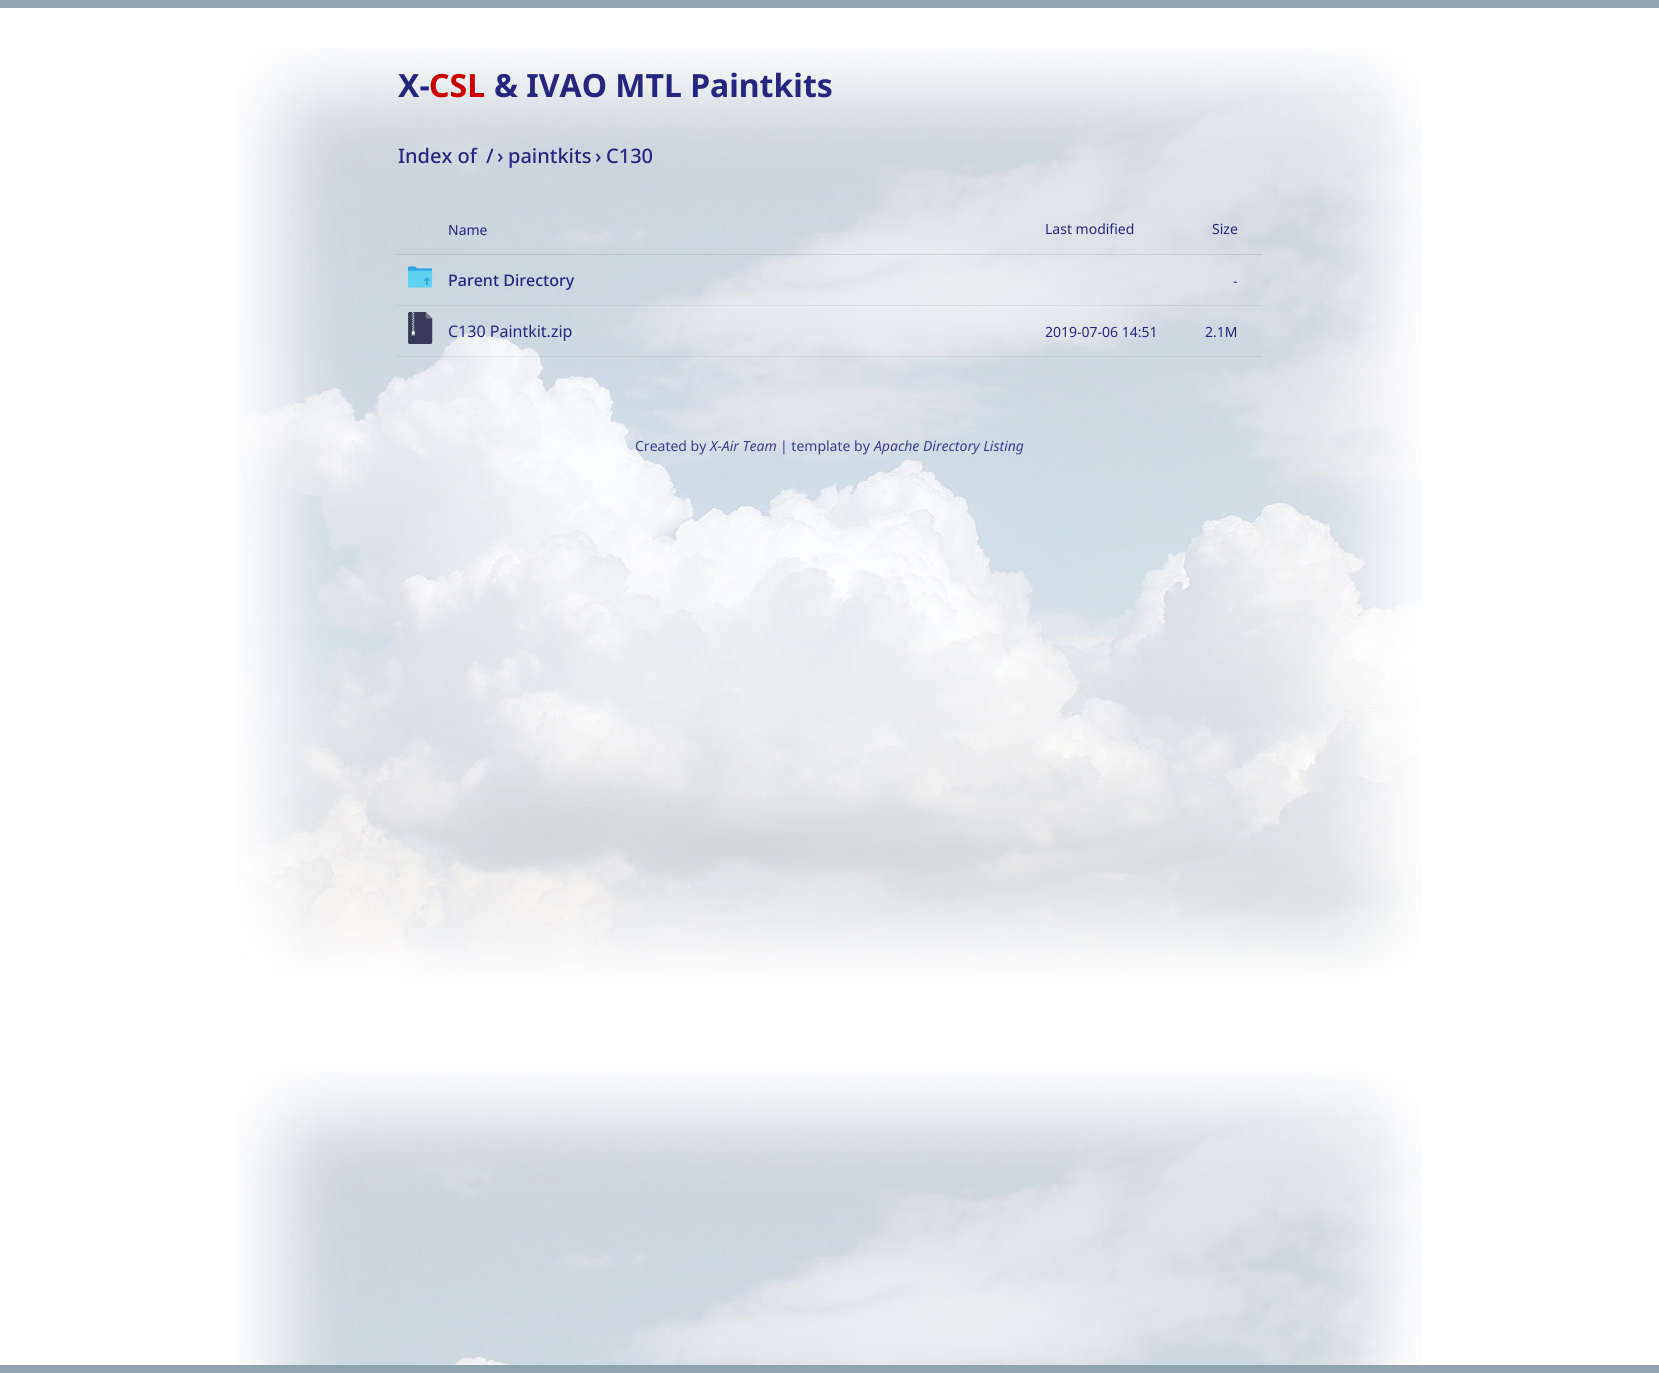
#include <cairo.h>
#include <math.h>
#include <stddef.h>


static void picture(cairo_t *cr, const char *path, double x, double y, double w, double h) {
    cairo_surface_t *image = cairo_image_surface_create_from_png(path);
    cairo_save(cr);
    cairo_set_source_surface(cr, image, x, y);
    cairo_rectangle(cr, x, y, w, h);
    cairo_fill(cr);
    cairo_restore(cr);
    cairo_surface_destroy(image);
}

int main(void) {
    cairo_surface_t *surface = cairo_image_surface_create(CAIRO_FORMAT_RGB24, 1659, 1373);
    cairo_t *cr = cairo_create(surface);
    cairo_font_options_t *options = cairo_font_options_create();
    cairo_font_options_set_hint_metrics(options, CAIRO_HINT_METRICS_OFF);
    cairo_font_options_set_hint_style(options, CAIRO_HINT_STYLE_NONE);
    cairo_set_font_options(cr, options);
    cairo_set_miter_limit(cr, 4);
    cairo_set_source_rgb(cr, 1, 1, 1);
    cairo_paint(cr);
    picture(cr, "img1.png", 238, 48, 1184, 1317);
    cairo_set_source_rgb(cr, 0.565, 0.643, 0.682);
    cairo_rectangle(cr, 0, 0, 1659, 8);
    cairo_fill(cr);
    cairo_rectangle(cr, 0, 1365, 1659, 8);
    cairo_fill(cr);
    cairo_select_font_face(cr, "Noto Sans", CAIRO_FONT_SLANT_NORMAL, CAIRO_FONT_WEIGHT_BOLD);
    cairo_set_font_size(cr, 32);
    cairo_set_source_rgb(cr, 0.149, 0.149, 0.506);
    cairo_move_to(cr, 398, 97);
    cairo_show_text(cr, "X-");
    cairo_set_source_rgb(cr, 0.8, 0, 0);
    cairo_move_to(cr, 429, 97);
    cairo_show_text(cr, "CSL");
    cairo_set_source_rgb(cr, 0.149, 0.149, 0.506);
    cairo_move_to(cr, 494, 97);
    cairo_show_text(cr, "& IVAO MTL Paintkits");
    cairo_select_font_face(cr, "Noto Sans Medium", CAIRO_FONT_SLANT_NORMAL, CAIRO_FONT_WEIGHT_NORMAL);
    cairo_set_font_size(cr, 20);
    cairo_move_to(cr, 398, 163);
    cairo_show_text(cr, "Index of");
    cairo_move_to(cr, 486, 163);
    cairo_show_text(cr, "/");
    cairo_move_to(cr, 497, 163);
    cairo_show_text(cr, "›");
    cairo_move_to(cr, 508, 163);
    cairo_show_text(cr, "paintkits");
    cairo_move_to(cr, 595, 163);
    cairo_show_text(cr, "›");
    cairo_move_to(cr, 606, 163);
    cairo_show_text(cr, "C130");
    cairo_set_source_rgba(cr, 0, 0, 0, 0.1);
    cairo_rectangle(cr, 397, 254, 865, 1);
    cairo_fill(cr);
    cairo_select_font_face(cr, "Noto Sans", CAIRO_FONT_SLANT_NORMAL, CAIRO_FONT_WEIGHT_NORMAL);
    cairo_set_font_size(cr, 14);
    cairo_set_source_rgb(cr, 0.149, 0.149, 0.506);
    cairo_move_to(cr, 448, 235);
    cairo_show_text(cr, "Name");
    cairo_move_to(cr, 1045, 234);
    cairo_show_text(cr, "Last modified");
    cairo_move_to(cr, 1212, 234);
    cairo_show_text(cr, "Size");
    cairo_set_source_rgba(cr, 0, 0, 0, 0.07);
    cairo_rectangle(cr, 397, 305, 865, 1);
    cairo_fill(cr);
    picture(cr, "img2.png", 407, 266, 26, 22);
    cairo_select_font_face(cr, "Noto Sans Medium", CAIRO_FONT_SLANT_NORMAL, CAIRO_FONT_WEIGHT_NORMAL);
    cairo_set_font_size(cr, 16);
    cairo_set_source_rgb(cr, 0.149, 0.149, 0.506);
    cairo_move_to(cr, 448, 286);
    cairo_show_text(cr, "Parent Directory");
    cairo_select_font_face(cr, "Noto Sans", CAIRO_FONT_SLANT_NORMAL, CAIRO_FONT_WEIGHT_NORMAL);
    cairo_set_font_size(cr, 14);
    cairo_move_to(cr, 1233, 286);
    cairo_show_text(cr, "-");
    cairo_set_source_rgba(cr, 0, 0, 0, 0.07);
    cairo_rectangle(cr, 397, 356, 865, 1);
    cairo_fill(cr);
    picture(cr, "img3.png", 408, 312, 25, 32);
    cairo_set_font_size(cr, 16);
    cairo_set_source_rgb(cr, 0.149, 0.149, 0.506);
    cairo_move_to(cr, 448, 337);
    cairo_show_text(cr, "C130 Paintkit.zip");
    cairo_set_font_size(cr, 14);
    cairo_move_to(cr, 1045, 337);
    cairo_show_text(cr, "2019-07-06 14:51");
    cairo_move_to(cr, 1205, 337);
    cairo_show_text(cr, "2.1M");
    cairo_set_source_rgb(cr, 0.235, 0.239, 0.557);
    cairo_move_to(cr, 635, 451);
    cairo_show_text(cr, "Created by");
    cairo_select_font_face(cr, "Noto Sans", CAIRO_FONT_SLANT_ITALIC, CAIRO_FONT_WEIGHT_NORMAL);
    cairo_move_to(cr, 710, 451);
    cairo_show_text(cr, "X-Air Team");
    cairo_select_font_face(cr, "Noto Sans", CAIRO_FONT_SLANT_NORMAL, CAIRO_FONT_WEIGHT_NORMAL);
    cairo_move_to(cr, 780, 451);
    cairo_show_text(cr, "| template by");
    cairo_select_font_face(cr, "Noto Sans", CAIRO_FONT_SLANT_ITALIC, CAIRO_FONT_WEIGHT_NORMAL);
    cairo_move_to(cr, 874, 451);
    cairo_show_text(cr, "Apache Directory Listing");
    cairo_surface_write_to_png(surface, "page.png");
    cairo_font_options_destroy(options);
    cairo_destroy(cr);
    cairo_surface_destroy(surface);
    return 0;
}
